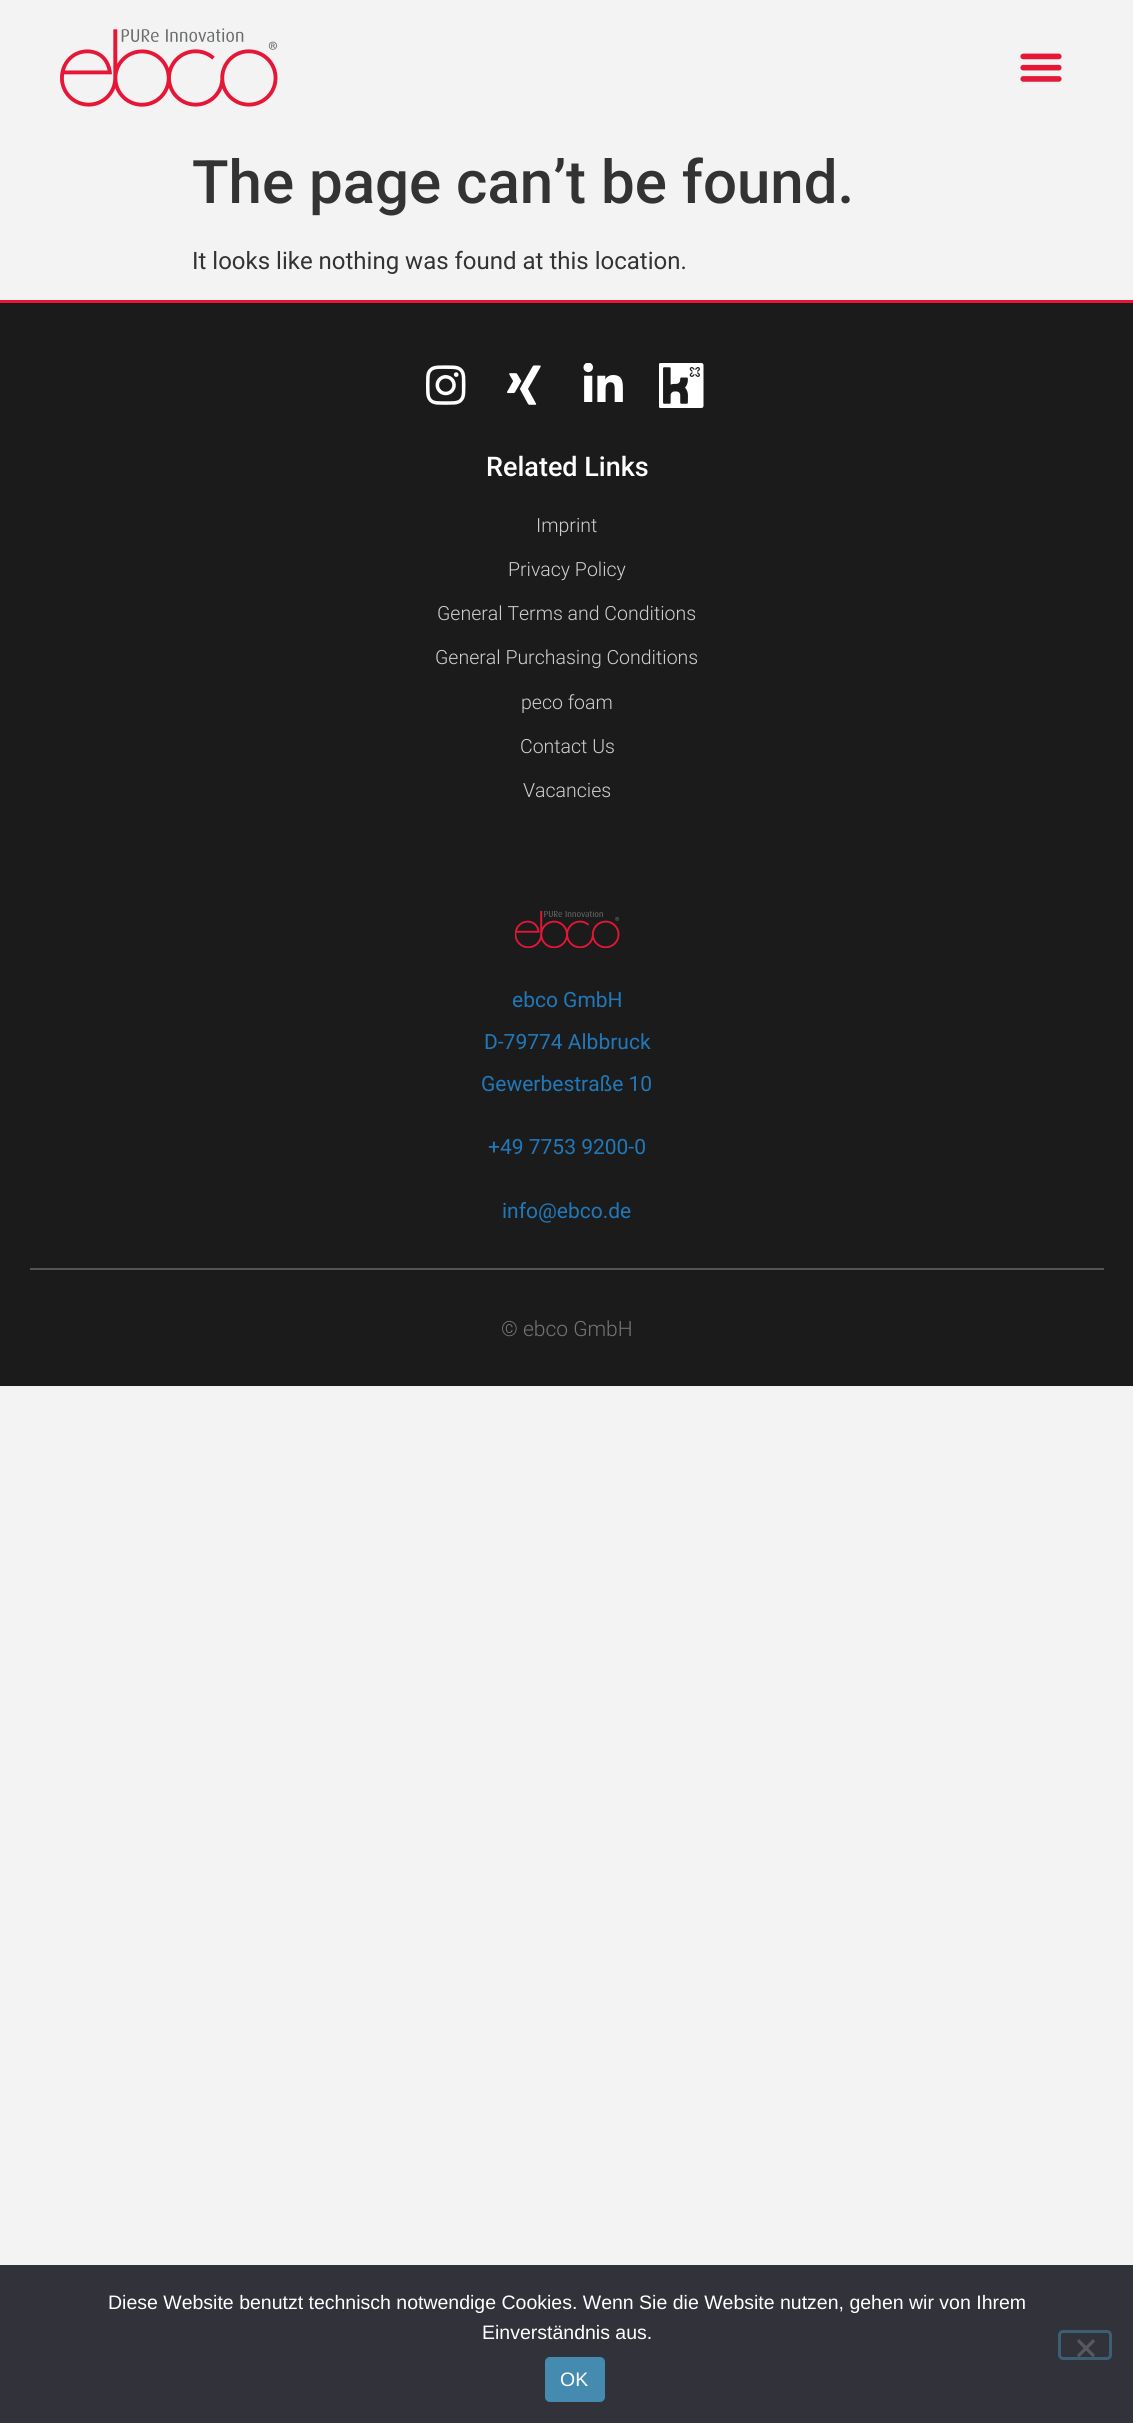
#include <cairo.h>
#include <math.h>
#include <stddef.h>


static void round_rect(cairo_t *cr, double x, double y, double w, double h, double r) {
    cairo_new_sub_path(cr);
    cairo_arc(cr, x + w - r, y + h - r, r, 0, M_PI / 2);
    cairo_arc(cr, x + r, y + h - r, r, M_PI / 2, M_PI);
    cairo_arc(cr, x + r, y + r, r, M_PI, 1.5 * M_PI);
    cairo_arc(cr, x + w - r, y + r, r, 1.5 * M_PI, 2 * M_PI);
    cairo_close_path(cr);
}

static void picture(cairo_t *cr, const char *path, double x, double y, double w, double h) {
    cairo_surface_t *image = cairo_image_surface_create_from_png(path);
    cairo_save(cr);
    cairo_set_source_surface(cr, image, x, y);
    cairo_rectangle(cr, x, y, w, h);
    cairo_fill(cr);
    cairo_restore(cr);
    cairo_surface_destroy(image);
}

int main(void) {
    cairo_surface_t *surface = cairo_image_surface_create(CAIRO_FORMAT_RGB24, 1133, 2423);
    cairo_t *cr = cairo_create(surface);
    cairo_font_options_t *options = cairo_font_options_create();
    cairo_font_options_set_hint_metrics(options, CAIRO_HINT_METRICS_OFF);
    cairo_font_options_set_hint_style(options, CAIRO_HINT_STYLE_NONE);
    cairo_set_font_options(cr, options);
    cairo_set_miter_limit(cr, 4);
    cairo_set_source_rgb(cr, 0.953, 0.953, 0.953);
    cairo_paint(cr);
    picture(cr, "img1.png", 60, 28, 218, 79);
    picture(cr, "img2.png", 1020, 53, 42, 29);
    cairo_select_font_face(cr, "Roboto Medium", CAIRO_FONT_SLANT_NORMAL, CAIRO_FONT_WEIGHT_NORMAL);
    cairo_set_font_size(cr, 60);
    cairo_set_source_rgb(cr, 0.2, 0.2, 0.2);
    cairo_move_to(cr, 192, 203);
    cairo_show_text(cr, "The page can’t be found.");
    cairo_select_font_face(cr, "Roboto", CAIRO_FONT_SLANT_NORMAL, CAIRO_FONT_WEIGHT_NORMAL);
    cairo_set_font_size(cr, 24);
    cairo_move_to(cr, 192, 269);
    cairo_show_text(cr, "It looks like nothing was found at this location.");
    cairo_set_source_rgb(cr, 0.106, 0.106, 0.106);
    cairo_rectangle(cr, 0, 303, 1133, 1083);
    cairo_fill(cr);
    cairo_set_source_rgb(cr, 0.898, 0.086, 0.212);
    cairo_rectangle(cr, 0, 300, 1133, 3);
    cairo_fill(cr);
    picture(cr, "img3.png", 426, 365, 40, 40);
    picture(cr, "img4.png", 507, 365, 34, 40);
    picture(cr, "img5.png", 583, 363, 40, 39);
    picture(cr, "img6.png", 659, 363, 45, 45);
    cairo_select_font_face(cr, "Roboto Medium", CAIRO_FONT_SLANT_NORMAL, CAIRO_FONT_WEIGHT_NORMAL);
    cairo_set_font_size(cr, 27);
    cairo_set_source_rgb(cr, 1, 1, 1);
    cairo_move_to(cr, 486, 476);
    cairo_show_text(cr, "Related Links");
    cairo_select_font_face(cr, "Roboto Light", CAIRO_FONT_SLANT_NORMAL, CAIRO_FONT_WEIGHT_NORMAL);
    cairo_set_font_size(cr, 19.5);
    cairo_set_source_rgb(cr, 0.812, 0.812, 0.812);
    cairo_move_to(cr, 536, 532);
    cairo_show_text(cr, "Imprint");
    cairo_move_to(cr, 508, 576);
    cairo_show_text(cr, "Privacy Policy");
    cairo_move_to(cr, 437, 620);
    cairo_show_text(cr, "General Terms and Conditions");
    cairo_move_to(cr, 435, 664);
    cairo_show_text(cr, "General Purchasing Conditions");
    cairo_move_to(cr, 521, 709);
    cairo_show_text(cr, "peco foam");
    cairo_move_to(cr, 520, 753);
    cairo_show_text(cr, "Contact Us");
    cairo_move_to(cr, 523, 797);
    cairo_show_text(cr, "Vacancies");
    picture(cr, "img7.png", 515, 911, 105, 37);
    cairo_select_font_face(cr, "Roboto", CAIRO_FONT_SLANT_NORMAL, CAIRO_FONT_WEIGHT_NORMAL);
    cairo_set_font_size(cr, 21);
    cairo_set_source_rgb(cr, 0.129, 0.471, 0.725);
    cairo_move_to(cr, 512, 1007);
    cairo_show_text(cr, "ebco GmbH");
    cairo_move_to(cr, 484, 1049);
    cairo_show_text(cr, "D-79774 Albbruck");
    cairo_move_to(cr, 481, 1091);
    cairo_show_text(cr, "Gewerbestraße 10");
    cairo_move_to(cr, 488, 1154);
    cairo_show_text(cr, "+49 7753 9200-0");
    cairo_move_to(cr, 502, 1218);
    cairo_show_text(cr, "info@ebco.de");
    cairo_set_source_rgb(cr, 0.329, 0.329, 0.329);
    cairo_rectangle(cr, 30, 1268, 1074, 2);
    cairo_fill(cr);
    cairo_select_font_face(cr, "Roboto Light", CAIRO_FONT_SLANT_NORMAL, CAIRO_FONT_WEIGHT_NORMAL);
    cairo_set_source_rgb(cr, 0.455, 0.455, 0.455);
    cairo_move_to(cr, 501, 1336);
    cairo_show_text(cr, "© ebco GmbH");
    cairo_set_source_rgb(cr, 0.196, 0.196, 0.227);
    cairo_rectangle(cr, 0, 2265, 1133, 158);
    cairo_fill(cr);
    cairo_select_font_face(cr, "Liberation Sans", CAIRO_FONT_SLANT_NORMAL, CAIRO_FONT_WEIGHT_NORMAL);
    cairo_set_font_size(cr, 19.5);
    cairo_set_source_rgb(cr, 1, 1, 1);
    cairo_move_to(cr, 108, 2309);
    cairo_show_text(cr, "Diese Website benutzt technisch notwendige Cookies. Wenn Sie die Website nutzen, gehen wir von Ihrem");
    cairo_move_to(cr, 482, 2339);
    cairo_show_text(cr, "Einverständnis aus.");
    round_rect(cr, 1059.5, 2331.5, 51, 27, 3.5);
    cairo_set_source_rgb(cr, 0.235, 0.373, 0.459);
    cairo_set_line_width(cr, 3);
    cairo_stroke(cr);
    cairo_set_source_rgb(cr, 0.349, 0.349, 0.365);
    cairo_new_path(cr);
    cairo_move_to(cr, 1093, 2339);
    cairo_line_to(cr, 1095, 2341.5);
    cairo_line_to(cr, 1079, 2357.5);
    cairo_line_to(cr, 1077, 2355);
    cairo_close_path(cr);
    cairo_fill(cr);
    cairo_new_path(cr);
    cairo_move_to(cr, 1077, 2341.5);
    cairo_line_to(cr, 1079, 2339);
    cairo_line_to(cr, 1095, 2355);
    cairo_line_to(cr, 1093, 2357.5);
    cairo_close_path(cr);
    cairo_fill(cr);
    cairo_set_source_rgb(cr, 0.271, 0.545, 0.69);
    round_rect(cr, 545, 2357, 60, 45, 5);
    cairo_fill(cr);
    cairo_set_source_rgb(cr, 1, 1, 1);
    cairo_move_to(cr, 560, 2386);
    cairo_show_text(cr, "OK");
    cairo_surface_write_to_png(surface, "page.png");
    cairo_font_options_destroy(options);
    cairo_destroy(cr);
    cairo_surface_destroy(surface);
    return 0;
}
